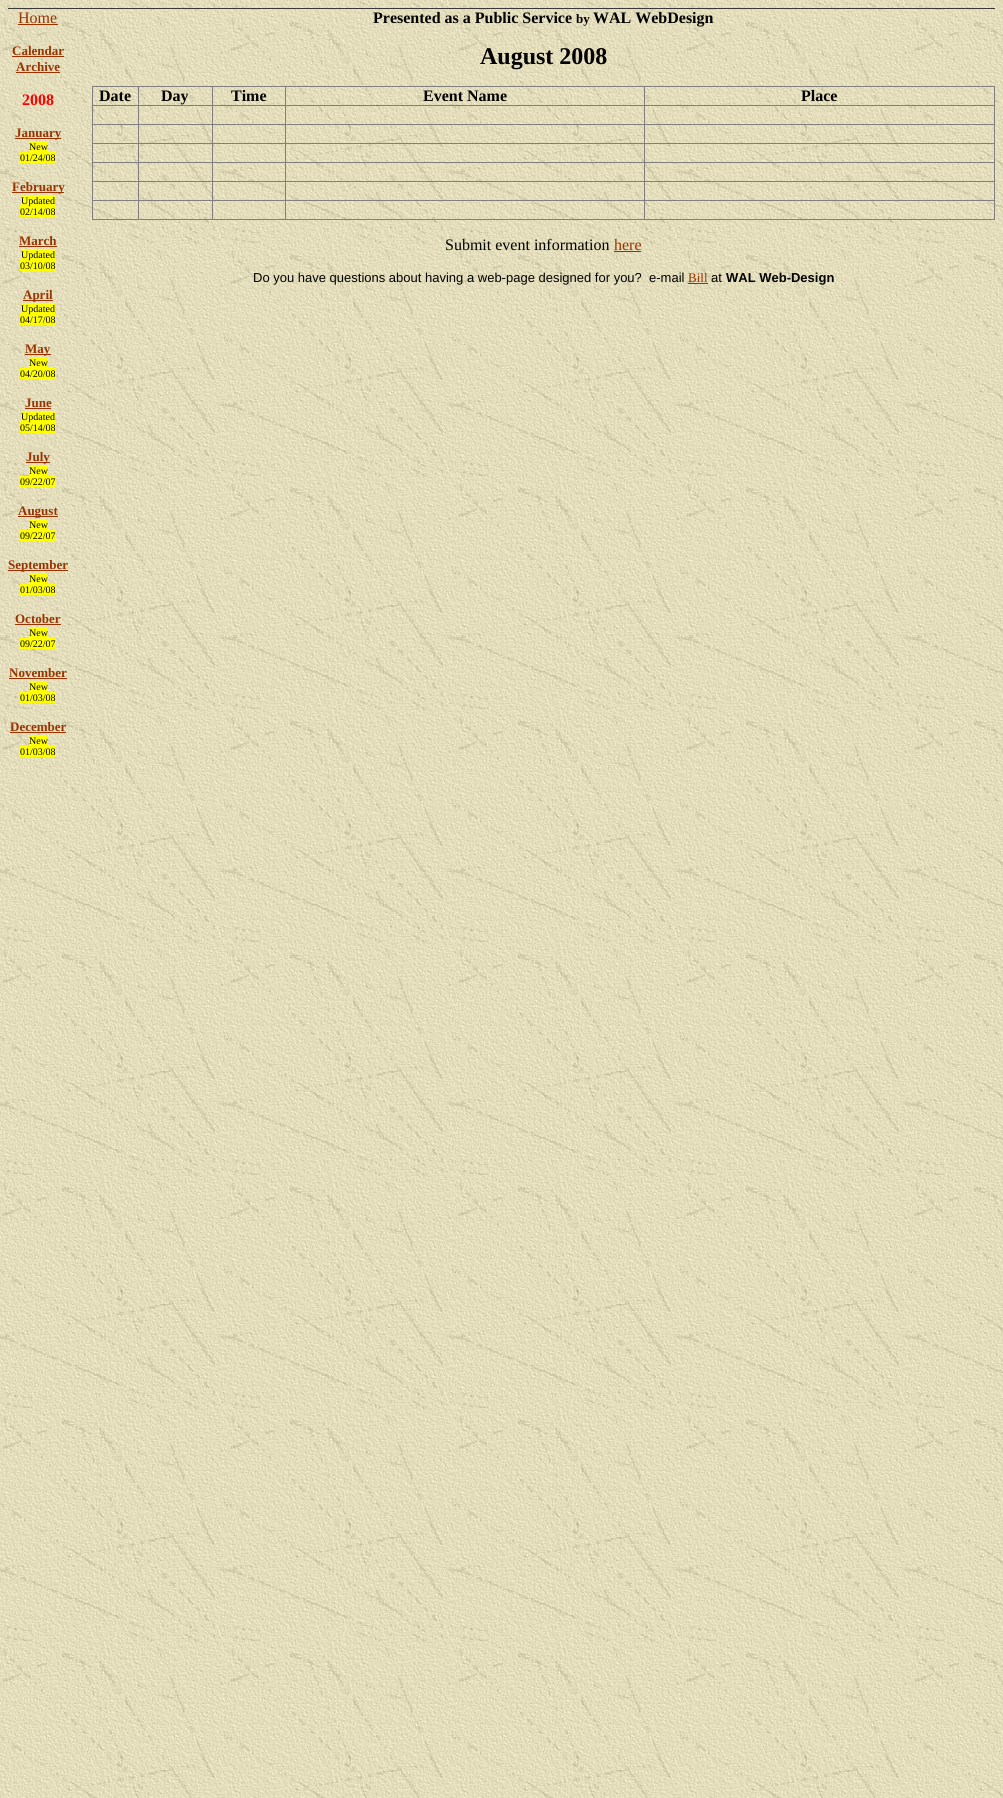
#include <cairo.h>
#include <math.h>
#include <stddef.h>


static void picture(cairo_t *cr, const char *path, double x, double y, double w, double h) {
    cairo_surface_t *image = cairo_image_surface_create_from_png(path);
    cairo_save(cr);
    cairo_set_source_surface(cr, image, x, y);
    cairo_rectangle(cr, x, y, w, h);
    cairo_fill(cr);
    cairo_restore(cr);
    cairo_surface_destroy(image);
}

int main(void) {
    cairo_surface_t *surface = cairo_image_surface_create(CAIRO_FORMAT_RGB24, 1003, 1798);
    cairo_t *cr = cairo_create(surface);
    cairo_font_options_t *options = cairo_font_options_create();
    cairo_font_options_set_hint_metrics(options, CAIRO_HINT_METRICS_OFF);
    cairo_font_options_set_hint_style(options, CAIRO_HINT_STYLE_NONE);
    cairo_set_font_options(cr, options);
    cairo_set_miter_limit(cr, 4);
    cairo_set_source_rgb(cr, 1, 1, 1);
    cairo_paint(cr);
    picture(cr, "img1.png", 0, 0, 1003, 1798);
    cairo_set_source_rgb(cr, 0.224, 0.224, 0.224);
    cairo_rectangle(cr, 8, 8, 987, 1);
    cairo_fill(cr);
    cairo_select_font_face(cr, "Liberation Serif", CAIRO_FONT_SLANT_NORMAL, CAIRO_FONT_WEIGHT_NORMAL);
    cairo_set_font_size(cr, 16);
    cairo_set_source_rgb(cr, 0.6, 0.2, 0);
    cairo_move_to(cr, 18, 23);
    cairo_show_text(cr, "Home");
    cairo_rectangle(cr, 18, 24, 40, 1);
    cairo_fill(cr);
    cairo_select_font_face(cr, "Liberation Serif", CAIRO_FONT_SLANT_NORMAL, CAIRO_FONT_WEIGHT_BOLD);
    cairo_set_font_size(cr, 13);
    cairo_move_to(cr, 12, 55);
    cairo_show_text(cr, "Calendar");
    cairo_rectangle(cr, 12, 56, 52, 1);
    cairo_fill(cr);
    cairo_move_to(cr, 16, 71);
    cairo_show_text(cr, "Archive");
    cairo_rectangle(cr, 16, 72, 44, 1);
    cairo_fill(cr);
    cairo_set_font_size(cr, 16);
    cairo_set_source_rgb(cr, 1, 0, 0);
    cairo_move_to(cr, 22, 105);
    cairo_show_text(cr, "2008");
    cairo_set_source_rgb(cr, 0.6, 0.2, 0);
    cairo_rectangle(cr, 15, 138, 46, 1);
    cairo_fill(cr);
    cairo_set_font_size(cr, 13);
    cairo_move_to(cr, 15, 137);
    cairo_show_text(cr, "January");
    cairo_set_source_rgb(cr, 1, 1, 0);
    cairo_rectangle(cr, 29, 141, 18, 11);
    cairo_fill(cr);
    cairo_select_font_face(cr, "Liberation Serif", CAIRO_FONT_SLANT_NORMAL, CAIRO_FONT_WEIGHT_NORMAL);
    cairo_set_font_size(cr, 10);
    cairo_set_source_rgb(cr, 0, 0, 0);
    cairo_move_to(cr, 29, 150);
    cairo_show_text(cr, "New");
    cairo_set_source_rgb(cr, 1, 1, 0);
    cairo_rectangle(cr, 20, 152, 36, 11);
    cairo_fill(cr);
    cairo_set_source_rgb(cr, 0, 0, 0);
    cairo_move_to(cr, 20, 161);
    cairo_show_text(cr, "01/24/08");
    cairo_set_source_rgb(cr, 0.6, 0.2, 0);
    cairo_rectangle(cr, 12, 192, 52, 1);
    cairo_fill(cr);
    cairo_select_font_face(cr, "Liberation Serif", CAIRO_FONT_SLANT_NORMAL, CAIRO_FONT_WEIGHT_BOLD);
    cairo_set_font_size(cr, 13);
    cairo_move_to(cr, 12, 191);
    cairo_show_text(cr, "February");
    cairo_set_source_rgb(cr, 1, 1, 0);
    cairo_rectangle(cr, 21, 195, 34, 11);
    cairo_fill(cr);
    cairo_rectangle(cr, 20, 206, 36, 11);
    cairo_fill(cr);
    cairo_select_font_face(cr, "Liberation Serif", CAIRO_FONT_SLANT_NORMAL, CAIRO_FONT_WEIGHT_NORMAL);
    cairo_set_font_size(cr, 10);
    cairo_set_source_rgb(cr, 0, 0, 0);
    cairo_move_to(cr, 21, 204);
    cairo_show_text(cr, "Updated");
    cairo_move_to(cr, 20, 215);
    cairo_show_text(cr, "02/14/08");
    cairo_select_font_face(cr, "Liberation Serif", CAIRO_FONT_SLANT_NORMAL, CAIRO_FONT_WEIGHT_BOLD);
    cairo_set_font_size(cr, 13);
    cairo_set_source_rgb(cr, 0.6, 0.2, 0);
    cairo_move_to(cr, 19, 245);
    cairo_show_text(cr, "March");
    cairo_rectangle(cr, 19, 246, 38, 1);
    cairo_fill(cr);
    cairo_set_source_rgb(cr, 1, 1, 0);
    cairo_rectangle(cr, 21, 249, 34, 11);
    cairo_fill(cr);
    cairo_rectangle(cr, 20, 260, 36, 11);
    cairo_fill(cr);
    cairo_select_font_face(cr, "Liberation Serif", CAIRO_FONT_SLANT_NORMAL, CAIRO_FONT_WEIGHT_NORMAL);
    cairo_set_font_size(cr, 10);
    cairo_set_source_rgb(cr, 0, 0, 0);
    cairo_move_to(cr, 21, 258);
    cairo_show_text(cr, "Updated");
    cairo_move_to(cr, 20, 269);
    cairo_show_text(cr, "03/10/08");
    cairo_set_source_rgb(cr, 0.6, 0.2, 0);
    cairo_rectangle(cr, 23, 300, 30, 1);
    cairo_fill(cr);
    cairo_select_font_face(cr, "Liberation Serif", CAIRO_FONT_SLANT_NORMAL, CAIRO_FONT_WEIGHT_BOLD);
    cairo_set_font_size(cr, 13);
    cairo_move_to(cr, 23, 299);
    cairo_show_text(cr, "April");
    cairo_set_source_rgb(cr, 1, 1, 0);
    cairo_rectangle(cr, 21, 303, 34, 11);
    cairo_fill(cr);
    cairo_rectangle(cr, 20, 314, 36, 11);
    cairo_fill(cr);
    cairo_select_font_face(cr, "Liberation Serif", CAIRO_FONT_SLANT_NORMAL, CAIRO_FONT_WEIGHT_NORMAL);
    cairo_set_font_size(cr, 10);
    cairo_set_source_rgb(cr, 0, 0, 0);
    cairo_move_to(cr, 21, 312);
    cairo_show_text(cr, "Updated");
    cairo_move_to(cr, 20, 323);
    cairo_show_text(cr, "04/17/08");
    cairo_set_source_rgb(cr, 0.6, 0.2, 0);
    cairo_rectangle(cr, 25, 354, 26, 1);
    cairo_fill(cr);
    cairo_select_font_face(cr, "Liberation Serif", CAIRO_FONT_SLANT_NORMAL, CAIRO_FONT_WEIGHT_BOLD);
    cairo_set_font_size(cr, 13);
    cairo_move_to(cr, 25, 353);
    cairo_show_text(cr, "May");
    cairo_set_source_rgb(cr, 1, 1, 0);
    cairo_rectangle(cr, 29, 357, 18, 11);
    cairo_fill(cr);
    cairo_select_font_face(cr, "Liberation Serif", CAIRO_FONT_SLANT_NORMAL, CAIRO_FONT_WEIGHT_NORMAL);
    cairo_set_font_size(cr, 10);
    cairo_set_source_rgb(cr, 0, 0, 0);
    cairo_move_to(cr, 29, 366);
    cairo_show_text(cr, "New");
    cairo_set_source_rgb(cr, 1, 1, 0);
    cairo_rectangle(cr, 20, 368, 36, 11);
    cairo_fill(cr);
    cairo_set_source_rgb(cr, 0, 0, 0);
    cairo_move_to(cr, 20, 377);
    cairo_show_text(cr, "04/20/08");
    cairo_select_font_face(cr, "Liberation Serif", CAIRO_FONT_SLANT_NORMAL, CAIRO_FONT_WEIGHT_BOLD);
    cairo_set_font_size(cr, 13);
    cairo_set_source_rgb(cr, 0.6, 0.2, 0);
    cairo_move_to(cr, 25, 407);
    cairo_show_text(cr, "June");
    cairo_rectangle(cr, 25, 408, 26, 1);
    cairo_fill(cr);
    cairo_set_source_rgb(cr, 1, 1, 0);
    cairo_rectangle(cr, 21, 411, 34, 11);
    cairo_fill(cr);
    cairo_rectangle(cr, 20, 422, 36, 11);
    cairo_fill(cr);
    cairo_select_font_face(cr, "Liberation Serif", CAIRO_FONT_SLANT_NORMAL, CAIRO_FONT_WEIGHT_NORMAL);
    cairo_set_font_size(cr, 10);
    cairo_set_source_rgb(cr, 0, 0, 0);
    cairo_move_to(cr, 21, 420);
    cairo_show_text(cr, "Updated");
    cairo_move_to(cr, 20, 431);
    cairo_show_text(cr, "05/14/08");
    cairo_set_source_rgb(cr, 0.878, 0.855, 0.722);
    cairo_rectangle(cr, 26, 447, 24, 17);
    cairo_fill(cr);
    cairo_set_source_rgb(cr, 0.6, 0.2, 0);
    cairo_rectangle(cr, 26, 462, 24, 1);
    cairo_fill(cr);
    cairo_select_font_face(cr, "Liberation Serif", CAIRO_FONT_SLANT_NORMAL, CAIRO_FONT_WEIGHT_BOLD);
    cairo_set_font_size(cr, 13);
    cairo_move_to(cr, 26, 461);
    cairo_show_text(cr, "July");
    cairo_set_source_rgb(cr, 1, 1, 0);
    cairo_rectangle(cr, 29, 465, 18, 11);
    cairo_fill(cr);
    cairo_select_font_face(cr, "Liberation Serif", CAIRO_FONT_SLANT_NORMAL, CAIRO_FONT_WEIGHT_NORMAL);
    cairo_set_font_size(cr, 10);
    cairo_set_source_rgb(cr, 0, 0, 0);
    cairo_move_to(cr, 29, 474);
    cairo_show_text(cr, "New");
    cairo_set_source_rgb(cr, 1, 1, 0);
    cairo_rectangle(cr, 20, 476, 36, 11);
    cairo_fill(cr);
    cairo_set_source_rgb(cr, 0, 0, 0);
    cairo_move_to(cr, 20, 485);
    cairo_show_text(cr, "09/22/07");
    cairo_set_source_rgb(cr, 0.6, 0.2, 0);
    cairo_rectangle(cr, 18, 516, 40, 1);
    cairo_fill(cr);
    cairo_select_font_face(cr, "Liberation Serif", CAIRO_FONT_SLANT_NORMAL, CAIRO_FONT_WEIGHT_BOLD);
    cairo_set_font_size(cr, 13);
    cairo_move_to(cr, 18, 515);
    cairo_show_text(cr, "August");
    cairo_set_source_rgb(cr, 1, 1, 0);
    cairo_rectangle(cr, 29, 519, 18, 11);
    cairo_fill(cr);
    cairo_select_font_face(cr, "Liberation Serif", CAIRO_FONT_SLANT_NORMAL, CAIRO_FONT_WEIGHT_NORMAL);
    cairo_set_font_size(cr, 10);
    cairo_set_source_rgb(cr, 0, 0, 0);
    cairo_move_to(cr, 29, 528);
    cairo_show_text(cr, "New");
    cairo_set_source_rgb(cr, 1, 1, 0);
    cairo_rectangle(cr, 20, 530, 36, 11);
    cairo_fill(cr);
    cairo_set_source_rgb(cr, 0, 0, 0);
    cairo_move_to(cr, 20, 539);
    cairo_show_text(cr, "09/22/07");
    cairo_set_source_rgb(cr, 0.6, 0.2, 0);
    cairo_rectangle(cr, 8, 570, 60, 1);
    cairo_fill(cr);
    cairo_select_font_face(cr, "Liberation Serif", CAIRO_FONT_SLANT_NORMAL, CAIRO_FONT_WEIGHT_BOLD);
    cairo_set_font_size(cr, 13);
    cairo_move_to(cr, 8, 569);
    cairo_show_text(cr, "September");
    cairo_set_source_rgb(cr, 1, 1, 0);
    cairo_rectangle(cr, 29, 573, 18, 11);
    cairo_fill(cr);
    cairo_select_font_face(cr, "Liberation Serif", CAIRO_FONT_SLANT_NORMAL, CAIRO_FONT_WEIGHT_NORMAL);
    cairo_set_font_size(cr, 10);
    cairo_set_source_rgb(cr, 0, 0, 0);
    cairo_move_to(cr, 29, 582);
    cairo_show_text(cr, "New");
    cairo_set_source_rgb(cr, 1, 1, 0);
    cairo_rectangle(cr, 20, 584, 36, 11);
    cairo_fill(cr);
    cairo_set_source_rgb(cr, 0, 0, 0);
    cairo_move_to(cr, 20, 593);
    cairo_show_text(cr, "01/03/08");
    cairo_select_font_face(cr, "Liberation Serif", CAIRO_FONT_SLANT_NORMAL, CAIRO_FONT_WEIGHT_BOLD);
    cairo_set_font_size(cr, 13);
    cairo_set_source_rgb(cr, 0.6, 0.2, 0);
    cairo_move_to(cr, 15, 623);
    cairo_show_text(cr, "October");
    cairo_rectangle(cr, 15, 624, 46, 1);
    cairo_fill(cr);
    cairo_set_source_rgb(cr, 1, 1, 0);
    cairo_rectangle(cr, 29, 627, 18, 11);
    cairo_fill(cr);
    cairo_select_font_face(cr, "Liberation Serif", CAIRO_FONT_SLANT_NORMAL, CAIRO_FONT_WEIGHT_NORMAL);
    cairo_set_font_size(cr, 10);
    cairo_set_source_rgb(cr, 0, 0, 0);
    cairo_move_to(cr, 29, 636);
    cairo_show_text(cr, "New");
    cairo_set_source_rgb(cr, 1, 1, 0);
    cairo_rectangle(cr, 20, 638, 36, 11);
    cairo_fill(cr);
    cairo_set_source_rgb(cr, 0, 0, 0);
    cairo_move_to(cr, 20, 647);
    cairo_show_text(cr, "09/22/07");
    cairo_select_font_face(cr, "Liberation Serif", CAIRO_FONT_SLANT_NORMAL, CAIRO_FONT_WEIGHT_BOLD);
    cairo_set_font_size(cr, 13);
    cairo_set_source_rgb(cr, 0.6, 0.2, 0);
    cairo_move_to(cr, 9, 677);
    cairo_show_text(cr, "November");
    cairo_rectangle(cr, 9, 678, 58, 1);
    cairo_fill(cr);
    cairo_set_source_rgb(cr, 1, 1, 0);
    cairo_rectangle(cr, 29, 681, 18, 11);
    cairo_fill(cr);
    cairo_select_font_face(cr, "Liberation Serif", CAIRO_FONT_SLANT_NORMAL, CAIRO_FONT_WEIGHT_NORMAL);
    cairo_set_font_size(cr, 10);
    cairo_set_source_rgb(cr, 0, 0, 0);
    cairo_move_to(cr, 29, 690);
    cairo_show_text(cr, "New");
    cairo_set_source_rgb(cr, 1, 1, 0);
    cairo_rectangle(cr, 20, 692, 36, 11);
    cairo_fill(cr);
    cairo_set_source_rgb(cr, 0, 0, 0);
    cairo_move_to(cr, 20, 701);
    cairo_show_text(cr, "01/03/08");
    cairo_select_font_face(cr, "Liberation Serif", CAIRO_FONT_SLANT_NORMAL, CAIRO_FONT_WEIGHT_BOLD);
    cairo_set_font_size(cr, 13);
    cairo_set_source_rgb(cr, 0.6, 0.2, 0);
    cairo_move_to(cr, 10, 731);
    cairo_show_text(cr, "December");
    cairo_rectangle(cr, 10, 732, 56, 1);
    cairo_fill(cr);
    cairo_set_source_rgb(cr, 1, 1, 0);
    cairo_rectangle(cr, 29, 735, 18, 11);
    cairo_fill(cr);
    cairo_select_font_face(cr, "Liberation Serif", CAIRO_FONT_SLANT_NORMAL, CAIRO_FONT_WEIGHT_NORMAL);
    cairo_set_font_size(cr, 10);
    cairo_set_source_rgb(cr, 0, 0, 0);
    cairo_move_to(cr, 29, 744);
    cairo_show_text(cr, "New");
    cairo_set_source_rgb(cr, 1, 1, 0);
    cairo_rectangle(cr, 20, 746, 36, 11);
    cairo_fill(cr);
    cairo_set_source_rgb(cr, 0, 0, 0);
    cairo_move_to(cr, 20, 755);
    cairo_show_text(cr, "01/03/08");
    cairo_select_font_face(cr, "Liberation Serif", CAIRO_FONT_SLANT_NORMAL, CAIRO_FONT_WEIGHT_BOLD);
    cairo_set_font_size(cr, 16);
    cairo_move_to(cr, 373, 23);
    cairo_show_text(cr, "Presented as a Public Service");
    cairo_set_font_size(cr, 13);
    cairo_move_to(cr, 576, 23);
    cairo_show_text(cr, "by");
    cairo_set_font_size(cr, 16);
    cairo_move_to(cr, 593, 23);
    cairo_show_text(cr, "WAL WebDesign");
    cairo_set_font_size(cr, 24);
    cairo_move_to(cr, 480, 64);
    cairo_show_text(cr, "August 2008");
    cairo_set_source_rgb(cr, 0.502, 0.502, 0.502);
    cairo_rectangle(cr, 92, 86, 903, 1);
    cairo_fill(cr);
    cairo_rectangle(cr, 994, 86, 1, 134);
    cairo_fill(cr);
    cairo_rectangle(cr, 92, 219, 903, 1);
    cairo_fill(cr);
    cairo_rectangle(cr, 92, 86, 1, 134);
    cairo_fill(cr);
    cairo_set_font_size(cr, 16);
    cairo_set_source_rgb(cr, 0, 0, 0);
    cairo_move_to(cr, 99, 101);
    cairo_show_text(cr, "Date");
    cairo_set_source_rgb(cr, 0.502, 0.502, 0.502);
    cairo_rectangle(cr, 644, 105, 351, 1);
    cairo_fill(cr);
    cairo_rectangle(cr, 644, 124, 351, 1);
    cairo_fill(cr);
    cairo_rectangle(cr, 644, 143, 351, 1);
    cairo_fill(cr);
    cairo_rectangle(cr, 644, 162, 351, 1);
    cairo_fill(cr);
    cairo_rectangle(cr, 644, 181, 351, 1);
    cairo_fill(cr);
    cairo_rectangle(cr, 644, 200, 351, 1);
    cairo_fill(cr);
    cairo_rectangle(cr, 644, 200, 1, 20);
    cairo_fill(cr);
    cairo_rectangle(cr, 285, 200, 360, 1);
    cairo_fill(cr);
    cairo_rectangle(cr, 644, 181, 1, 20);
    cairo_fill(cr);
    cairo_rectangle(cr, 285, 181, 360, 1);
    cairo_fill(cr);
    cairo_rectangle(cr, 644, 162, 1, 20);
    cairo_fill(cr);
    cairo_rectangle(cr, 285, 162, 360, 1);
    cairo_fill(cr);
    cairo_rectangle(cr, 644, 143, 1, 20);
    cairo_fill(cr);
    cairo_rectangle(cr, 285, 143, 360, 1);
    cairo_fill(cr);
    cairo_rectangle(cr, 644, 124, 1, 20);
    cairo_fill(cr);
    cairo_rectangle(cr, 285, 124, 360, 1);
    cairo_fill(cr);
    cairo_rectangle(cr, 644, 105, 1, 20);
    cairo_fill(cr);
    cairo_rectangle(cr, 285, 105, 360, 1);
    cairo_fill(cr);
    cairo_rectangle(cr, 285, 200, 1, 20);
    cairo_fill(cr);
    cairo_rectangle(cr, 212, 200, 74, 1);
    cairo_fill(cr);
    cairo_rectangle(cr, 285, 181, 1, 20);
    cairo_fill(cr);
    cairo_rectangle(cr, 212, 181, 74, 1);
    cairo_fill(cr);
    cairo_rectangle(cr, 285, 162, 1, 20);
    cairo_fill(cr);
    cairo_rectangle(cr, 212, 162, 74, 1);
    cairo_fill(cr);
    cairo_rectangle(cr, 285, 143, 1, 20);
    cairo_fill(cr);
    cairo_rectangle(cr, 212, 143, 74, 1);
    cairo_fill(cr);
    cairo_rectangle(cr, 285, 124, 1, 20);
    cairo_fill(cr);
    cairo_rectangle(cr, 212, 124, 74, 1);
    cairo_fill(cr);
    cairo_rectangle(cr, 285, 105, 1, 20);
    cairo_fill(cr);
    cairo_rectangle(cr, 212, 105, 74, 1);
    cairo_fill(cr);
    cairo_rectangle(cr, 212, 200, 1, 20);
    cairo_fill(cr);
    cairo_rectangle(cr, 138, 200, 75, 1);
    cairo_fill(cr);
    cairo_rectangle(cr, 212, 181, 1, 20);
    cairo_fill(cr);
    cairo_rectangle(cr, 138, 181, 75, 1);
    cairo_fill(cr);
    cairo_rectangle(cr, 212, 162, 1, 20);
    cairo_fill(cr);
    cairo_rectangle(cr, 138, 162, 75, 1);
    cairo_fill(cr);
    cairo_rectangle(cr, 212, 143, 1, 20);
    cairo_fill(cr);
    cairo_rectangle(cr, 138, 143, 75, 1);
    cairo_fill(cr);
    cairo_rectangle(cr, 212, 124, 1, 20);
    cairo_fill(cr);
    cairo_rectangle(cr, 138, 124, 75, 1);
    cairo_fill(cr);
    cairo_rectangle(cr, 212, 105, 1, 20);
    cairo_fill(cr);
    cairo_rectangle(cr, 138, 105, 75, 1);
    cairo_fill(cr);
    cairo_rectangle(cr, 138, 200, 1, 20);
    cairo_fill(cr);
    cairo_rectangle(cr, 92, 200, 47, 1);
    cairo_fill(cr);
    cairo_rectangle(cr, 138, 181, 1, 20);
    cairo_fill(cr);
    cairo_rectangle(cr, 92, 181, 47, 1);
    cairo_fill(cr);
    cairo_rectangle(cr, 138, 162, 1, 20);
    cairo_fill(cr);
    cairo_rectangle(cr, 92, 162, 47, 1);
    cairo_fill(cr);
    cairo_rectangle(cr, 138, 143, 1, 20);
    cairo_fill(cr);
    cairo_rectangle(cr, 92, 143, 47, 1);
    cairo_fill(cr);
    cairo_rectangle(cr, 138, 124, 1, 20);
    cairo_fill(cr);
    cairo_rectangle(cr, 92, 124, 47, 1);
    cairo_fill(cr);
    cairo_rectangle(cr, 138, 105, 1, 20);
    cairo_fill(cr);
    cairo_rectangle(cr, 92, 105, 47, 1);
    cairo_fill(cr);
    cairo_rectangle(cr, 138, 86, 1, 20);
    cairo_fill(cr);
    cairo_set_source_rgb(cr, 0, 0, 0);
    cairo_move_to(cr, 161, 101);
    cairo_show_text(cr, "Day");
    cairo_set_source_rgb(cr, 0.502, 0.502, 0.502);
    cairo_rectangle(cr, 212, 86, 1, 20);
    cairo_fill(cr);
    cairo_set_source_rgb(cr, 0, 0, 0);
    cairo_move_to(cr, 231, 101);
    cairo_show_text(cr, "Time");
    cairo_set_source_rgb(cr, 0.502, 0.502, 0.502);
    cairo_rectangle(cr, 285, 86, 1, 20);
    cairo_fill(cr);
    cairo_set_source_rgb(cr, 0, 0, 0);
    cairo_move_to(cr, 423, 101);
    cairo_show_text(cr, "Event Name");
    cairo_set_source_rgb(cr, 0.502, 0.502, 0.502);
    cairo_rectangle(cr, 644, 86, 1, 20);
    cairo_fill(cr);
    cairo_set_source_rgb(cr, 0, 0, 0);
    cairo_move_to(cr, 801, 101);
    cairo_show_text(cr, "Place");
    cairo_select_font_face(cr, "Liberation Serif", CAIRO_FONT_SLANT_NORMAL, CAIRO_FONT_WEIGHT_NORMAL);
    cairo_move_to(cr, 445, 250);
    cairo_show_text(cr, "Submit event information");
    cairo_set_source_rgb(cr, 0.6, 0.2, 0);
    cairo_move_to(cr, 614, 250);
    cairo_show_text(cr, "here");
    cairo_rectangle(cr, 614, 251, 27, 1);
    cairo_fill(cr);
    cairo_select_font_face(cr, "Liberation Sans", CAIRO_FONT_SLANT_NORMAL, CAIRO_FONT_WEIGHT_NORMAL);
    cairo_set_font_size(cr, 13);
    cairo_set_source_rgb(cr, 0, 0, 0);
    cairo_move_to(cr, 253, 282);
    cairo_show_text(cr, "Do you have questions about having a web-page designed for you?  e-mail");
    cairo_select_font_face(cr, "Liberation Serif", CAIRO_FONT_SLANT_NORMAL, CAIRO_FONT_WEIGHT_NORMAL);
    cairo_set_source_rgb(cr, 0.6, 0.2, 0);
    cairo_move_to(cr, 688, 282);
    cairo_show_text(cr, "Bill");
    cairo_rectangle(cr, 688, 283, 20, 1);
    cairo_fill(cr);
    cairo_select_font_face(cr, "Liberation Sans", CAIRO_FONT_SLANT_NORMAL, CAIRO_FONT_WEIGHT_NORMAL);
    cairo_set_source_rgb(cr, 0, 0, 0);
    cairo_move_to(cr, 711, 282);
    cairo_show_text(cr, "at");
    cairo_select_font_face(cr, "Liberation Sans", CAIRO_FONT_SLANT_NORMAL, CAIRO_FONT_WEIGHT_BOLD);
    cairo_move_to(cr, 726, 282);
    cairo_show_text(cr, "WAL Web-Design");
    cairo_surface_write_to_png(surface, "page.png");
    cairo_font_options_destroy(options);
    cairo_destroy(cr);
    cairo_surface_destroy(surface);
    return 0;
}
